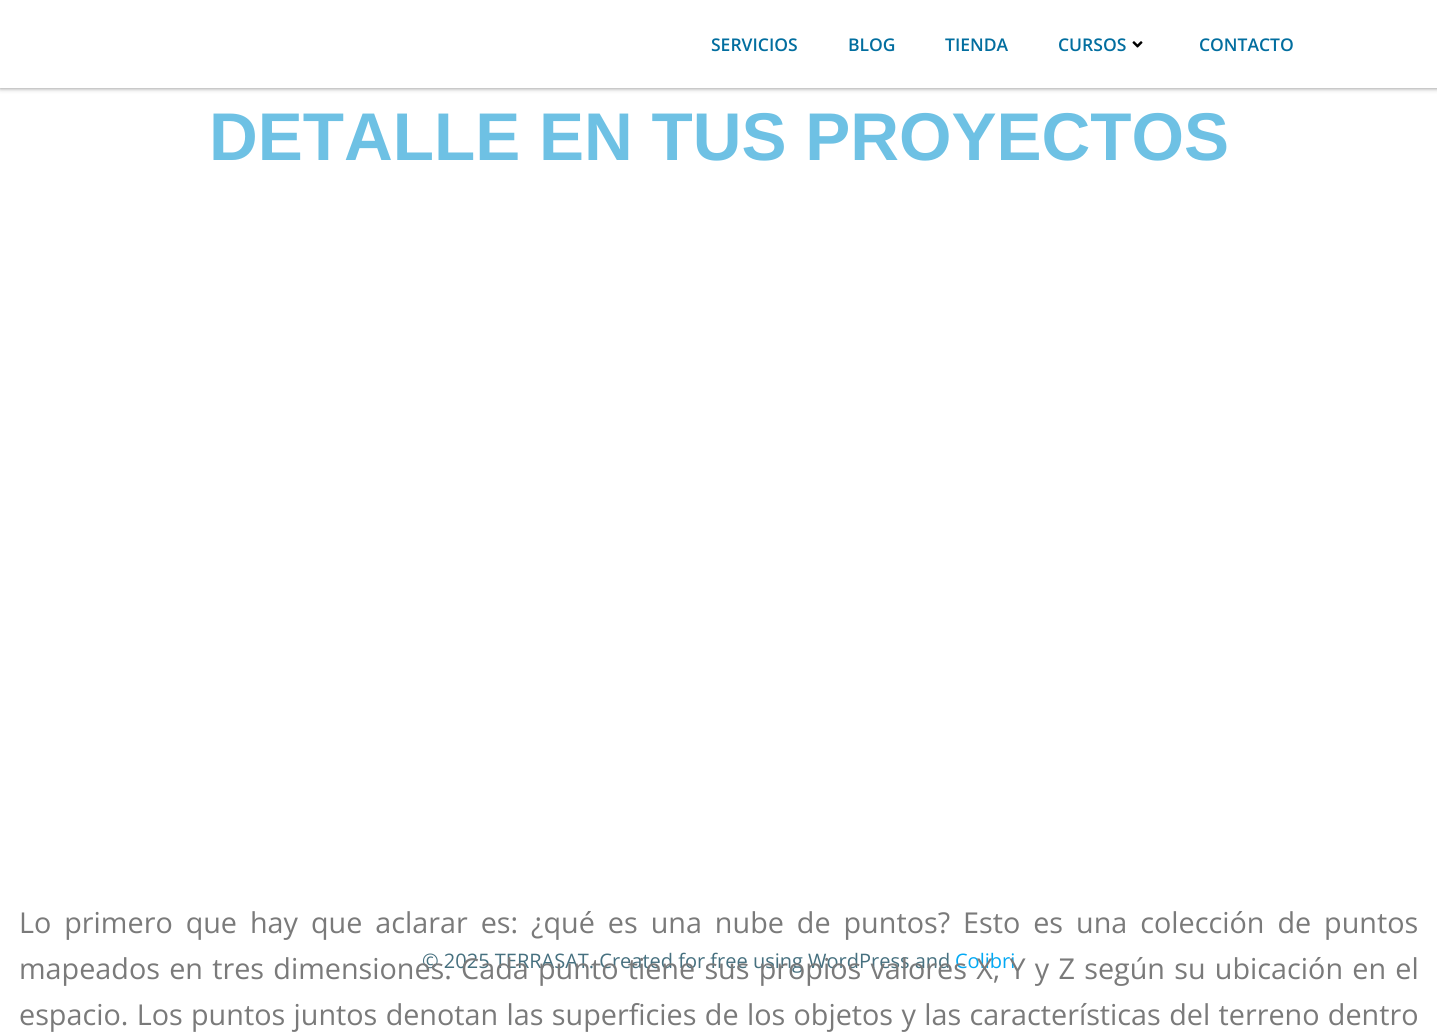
#include <cairo.h>
#include <math.h>
#include <stddef.h>


static void spaced_text(cairo_t *cr, double x, double y, const char *s, double letter, double word) {
    cairo_move_to(cr, x, y);
    while (*s) {
        char ch[5] = {0};
        int n = 0;
        do ch[n++] = *s++; while ((*s & 0xC0) == 0x80);
        cairo_show_text(cr, ch);
        cairo_rel_move_to(cr, letter + word * (*ch == ' '), 0);
    }
}

static void round_rect(cairo_t *cr, double x, double y, double w, double h, double r) {
    cairo_new_sub_path(cr);
    cairo_arc(cr, x + w - r, y + h - r, r, 0, M_PI / 2);
    cairo_arc(cr, x + r, y + h - r, r, M_PI / 2, M_PI);
    cairo_arc(cr, x + r, y + r, r, M_PI, 1.5 * M_PI);
    cairo_arc(cr, x + w - r, y + r, r, 1.5 * M_PI, 2 * M_PI);
    cairo_close_path(cr);
}

static void shadow(cairo_t *cr, double x, double y, double w, double h, double r, double blur, double alpha) {
    cairo_push_group_with_content(cr, CAIRO_CONTENT_ALPHA);
    cairo_set_operator(cr, CAIRO_OPERATOR_SOURCE);
    for (int i = 15; i >= -15 && fmin(w, h) + blur * i / 3 > 0; i -= 2) {
        double e = blur * i / 6;
        cairo_set_source_rgba(cr, 0, 0, 0, alpha * erfc((i - 1) / 8.5) / 2);
        round_rect(cr, x - e, y - e, w + 2 * e, h + 2 * e, fmax(0, fmin(r + e + blur * .6, fmin(w, h) / 2 + e)));
        cairo_fill(cr);
    }
    cairo_pattern_t *soft = cairo_pop_group(cr);
    cairo_mask(cr, soft);
    cairo_pattern_destroy(soft);
}

static void picture(cairo_t *cr, const char *path, double x, double y, double w, double h) {
    cairo_surface_t *image = cairo_image_surface_create_from_png(path);
    cairo_save(cr);
    cairo_set_source_surface(cr, image, x, y);
    cairo_rectangle(cr, x, y, w, h);
    cairo_fill(cr);
    cairo_restore(cr);
    cairo_surface_destroy(image);
}

int main(void) {
    cairo_surface_t *surface = cairo_image_surface_create(CAIRO_FORMAT_RGB24, 1437, 1034);
    cairo_t *cr = cairo_create(surface);
    cairo_font_options_t *options = cairo_font_options_create();
    cairo_font_options_set_hint_metrics(options, CAIRO_HINT_METRICS_OFF);
    cairo_font_options_set_hint_style(options, CAIRO_HINT_STYLE_NONE);
    cairo_set_font_options(cr, options);
    cairo_set_miter_limit(cr, 4);
    cairo_set_source_rgb(cr, 1, 1, 1);
    cairo_paint(cr);
    cairo_set_source_rgb(cr, 0, 0, 0);
    shadow(cr, 0, 0, 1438, 88, 0, 2.5, 0.5);
    cairo_set_source_rgb(cr, 1, 1, 1);
    cairo_rectangle(cr, 0, 0, 1437, 88);
    cairo_fill(cr);
    cairo_select_font_face(cr, "Open Sans SemiBold", CAIRO_FONT_SLANT_NORMAL, CAIRO_FONT_WEIGHT_NORMAL);
    cairo_set_font_size(cr, 17.5);
    cairo_set_source_rgb(cr, 0.008, 0.431, 0.624);
    cairo_move_to(cr, 711, 51);
    cairo_show_text(cr, "SERVICIOS");
    cairo_move_to(cr, 848, 51);
    cairo_show_text(cr, "BLOG");
    cairo_move_to(cr, 945, 51);
    cairo_show_text(cr, "TIENDA");
    cairo_move_to(cr, 1058, 51);
    cairo_show_text(cr, "CURSOS");
    picture(cr, "img1.png", 1132, 41, 11, 7);
    cairo_move_to(cr, 1199, 51);
    cairo_show_text(cr, "CONTACTO");
    cairo_select_font_face(cr, "Liberation Sans", CAIRO_FONT_SLANT_NORMAL, CAIRO_FONT_WEIGHT_BOLD);
    cairo_set_font_size(cr, 67.5);
    cairo_set_source_rgb(cr, 0.431, 0.757, 0.894);
    cairo_move_to(cr, 209, 160);
    cairo_show_text(cr, "DETALLE EN TUS PROYECTOS");
    cairo_select_font_face(cr, "Open Sans", CAIRO_FONT_SLANT_NORMAL, CAIRO_FONT_WEIGHT_NORMAL);
    cairo_set_font_size(cr, 28.75);
    cairo_set_source_rgb(cr, 0.478, 0.478, 0.478);
    spaced_text(cr, 19, 933, "Lo primero que hay que aclarar es: ¿qué es una nube de puntos? Esto es una colección de puntos", 0, 5.5);
    cairo_set_font_size(cr, 20);
    cairo_set_source_rgb(cr, 0.275, 0.439, 0.498);
    cairo_move_to(cr, 422, 968);
    cairo_show_text(cr, "© 2025 TERRASAT. Created for free using WordPress and");
    cairo_set_source_rgb(cr, 0.012, 0.663, 0.957);
    cairo_move_to(cr, 955, 968);
    cairo_show_text(cr, "Colibri");
    cairo_set_font_size(cr, 28.75);
    cairo_set_source_rgb(cr, 0.478, 0.478, 0.478);
    spaced_text(cr, 19, 979, "mapeados en tres dimensiones. Cada punto tiene sus propios valores X, Y y Z según su ubicación en el", 0, 1.8);
    spaced_text(cr, 19, 1025, "espacio. Los puntos juntos denotan las superficies de los objetos y las características del terreno dentro", 0, 0.9);
    cairo_surface_write_to_png(surface, "page.png");
    cairo_font_options_destroy(options);
    cairo_destroy(cr);
    cairo_surface_destroy(surface);
    return 0;
}
